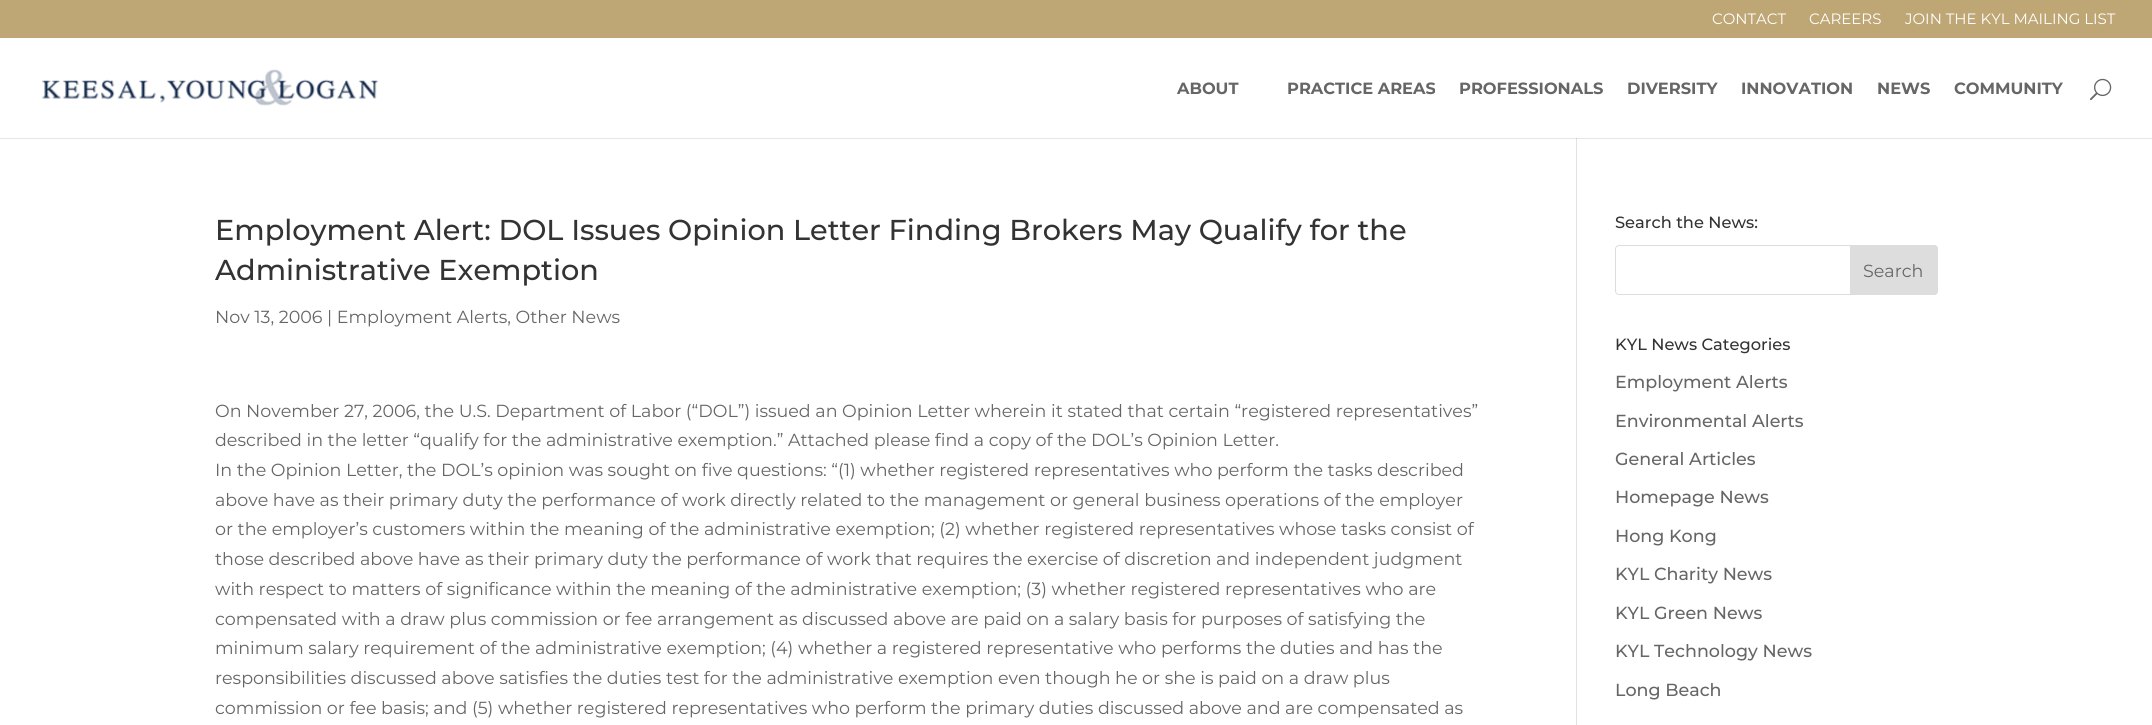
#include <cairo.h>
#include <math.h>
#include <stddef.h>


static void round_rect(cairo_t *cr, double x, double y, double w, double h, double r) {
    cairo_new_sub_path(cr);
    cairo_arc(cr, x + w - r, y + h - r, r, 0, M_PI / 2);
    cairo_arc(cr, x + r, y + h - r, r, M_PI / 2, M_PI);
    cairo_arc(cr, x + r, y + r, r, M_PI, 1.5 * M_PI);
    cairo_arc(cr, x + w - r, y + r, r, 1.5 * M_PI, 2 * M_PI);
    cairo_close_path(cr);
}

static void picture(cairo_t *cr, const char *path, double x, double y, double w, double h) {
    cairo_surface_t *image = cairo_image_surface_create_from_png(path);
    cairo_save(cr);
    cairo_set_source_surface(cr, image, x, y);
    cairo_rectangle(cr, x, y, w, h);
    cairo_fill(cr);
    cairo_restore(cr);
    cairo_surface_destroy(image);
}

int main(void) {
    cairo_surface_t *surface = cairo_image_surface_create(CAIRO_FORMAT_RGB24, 2152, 725);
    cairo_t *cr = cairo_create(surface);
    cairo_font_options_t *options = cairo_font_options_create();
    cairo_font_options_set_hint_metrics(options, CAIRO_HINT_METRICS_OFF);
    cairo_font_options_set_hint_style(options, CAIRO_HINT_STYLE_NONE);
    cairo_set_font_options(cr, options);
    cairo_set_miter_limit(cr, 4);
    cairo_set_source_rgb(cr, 1, 1, 1);
    cairo_paint(cr);
    cairo_set_source_rgb(cr, 0.745, 0.651, 0.459);
    cairo_rectangle(cr, 0, 0, 2152, 38);
    cairo_fill(cr);
    cairo_select_font_face(cr, "Montserrat", CAIRO_FONT_SLANT_NORMAL, CAIRO_FONT_WEIGHT_NORMAL);
    cairo_set_font_size(cr, 15);
    cairo_set_source_rgb(cr, 1, 1, 1);
    cairo_move_to(cr, 1712, 24);
    cairo_show_text(cr, "CONTACT");
    cairo_move_to(cr, 1809, 24);
    cairo_show_text(cr, "CAREERS");
    cairo_move_to(cr, 1905, 24);
    cairo_show_text(cr, "JOIN THE KYL MAILING LIST");
    cairo_set_source_rgb(cr, 0.886, 0.886, 0.886);
    cairo_rectangle(cr, 1576, 138, 1, 587);
    cairo_fill(cr);
    cairo_set_source_rgba(cr, 0, 0, 0, 0.1);
    cairo_new_path(cr);
    cairo_move_to(cr, 0, 138);
    cairo_line_to(cr, 0, 139);
    cairo_line_to(cr, 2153, 139);
    cairo_line_to(cr, 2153, 39);
    cairo_line_to(cr, 2152, 39);
    cairo_line_to(cr, 2152, 138);
    cairo_close_path(cr);
    cairo_fill(cr);
    picture(cr, "img1.png", 42, 69, 337, 37);
    cairo_select_font_face(cr, "Montserrat", CAIRO_FONT_SLANT_NORMAL, CAIRO_FONT_WEIGHT_BOLD);
    cairo_set_font_size(cr, 16.25);
    cairo_set_source_rgb(cr, 0.4, 0.4, 0.4);
    cairo_move_to(cr, 1177, 94);
    cairo_show_text(cr, "ABOUT");
    cairo_move_to(cr, 1287, 94);
    cairo_show_text(cr, "PRACTICE AREAS");
    cairo_move_to(cr, 1459, 94);
    cairo_show_text(cr, "PROFESSIONALS");
    cairo_move_to(cr, 1627, 94);
    cairo_show_text(cr, "DIVERSITY");
    cairo_move_to(cr, 1741, 94);
    cairo_show_text(cr, "INNOVATION");
    cairo_move_to(cr, 1877, 94);
    cairo_show_text(cr, "NEWS");
    cairo_move_to(cr, 1954, 94);
    cairo_show_text(cr, "COMMUNITY");
    picture(cr, "img2.png", 2090, 78, 22, 23);
    cairo_select_font_face(cr, "Montserrat Medium", CAIRO_FONT_SLANT_NORMAL, CAIRO_FONT_WEIGHT_NORMAL);
    cairo_set_font_size(cr, 28.75);
    cairo_set_source_rgb(cr, 0.2, 0.2, 0.2);
    cairo_move_to(cr, 215, 240);
    cairo_show_text(cr, "Employment Alert: DOL Issues Opinion Letter Finding Brokers May Qualify for the");
    cairo_move_to(cr, 215, 280);
    cairo_show_text(cr, "Administrative Exemption");
    cairo_select_font_face(cr, "Montserrat", CAIRO_FONT_SLANT_NORMAL, CAIRO_FONT_WEIGHT_NORMAL);
    cairo_set_font_size(cr, 17.5);
    cairo_set_source_rgb(cr, 0.4, 0.4, 0.4);
    cairo_move_to(cr, 215, 323);
    cairo_show_text(cr, "Nov 13, 2006 | Employment Alerts, Other News");
    cairo_move_to(cr, 215, 417);
    cairo_show_text(cr, "On November 27, 2006, the U.S. Department of Labor (“DOL”) issued an Opinion Letter wherein it stated that certain “registered representatives”");
    cairo_move_to(cr, 215, 446);
    cairo_show_text(cr, "described in the letter “qualify for the administrative exemption.” Attached please find a copy of the DOL’s Opinion Letter.");
    cairo_move_to(cr, 215, 476);
    cairo_show_text(cr, "In the Opinion Letter, the DOL’s opinion was sought on five questions: “(1) whether registered representatives who perform the tasks described");
    cairo_move_to(cr, 215, 506);
    cairo_show_text(cr, "above have as their primary duty the performance of work directly related to the management or general business operations of the employer");
    cairo_move_to(cr, 215, 535);
    cairo_show_text(cr, "or the employer’s customers within the meaning of the administrative exemption; (2) whether registered representatives whose tasks consist of");
    cairo_move_to(cr, 215, 565);
    cairo_show_text(cr, "those described above have as their primary duty the performance of work that requires the exercise of discretion and independent judgment");
    cairo_move_to(cr, 215, 595);
    cairo_show_text(cr, "with respect to matters of significance within the meaning of the administrative exemption; (3) whether registered representatives who are");
    cairo_move_to(cr, 215, 625);
    cairo_show_text(cr, "compensated with a draw plus commission or fee arrangement as discussed above are paid on a salary basis for purposes of satisfying the");
    cairo_move_to(cr, 215, 654);
    cairo_show_text(cr, "minimum salary requirement of the administrative exemption; (4) whether a registered representative who performs the duties and has the");
    cairo_move_to(cr, 215, 684);
    cairo_show_text(cr, "responsibilities discussed above satisfies the duties test for the administrative exemption even though he or she is paid on a draw plus");
    cairo_move_to(cr, 215, 714);
    cairo_show_text(cr, "commission or fee basis; and (5) whether registered representatives who perform the primary duties discussed above and are compensated as");
    cairo_select_font_face(cr, "Montserrat Medium", CAIRO_FONT_SLANT_NORMAL, CAIRO_FONT_WEIGHT_NORMAL);
    cairo_set_font_size(cr, 16.25);
    cairo_set_source_rgb(cr, 0.2, 0.2, 0.2);
    cairo_move_to(cr, 1615, 228);
    cairo_show_text(cr, "Search the News:");
    round_rect(cr, 1615.5, 245.5, 322, 49, 3.5);
    cairo_set_source_rgb(cr, 0.867, 0.867, 0.867);
    cairo_set_line_width(cr, 1);
    cairo_stroke(cr);
    cairo_new_path(cr);
    cairo_move_to(cr, 1850.5, 245.5);
    cairo_line_to(cr, 1934, 245.5);
    cairo_curve_to(cr, 1936, 245.5, 1937.5, 247, 1937.5, 249);
    cairo_line_to(cr, 1937.5, 291);
    cairo_curve_to(cr, 1937.5, 293, 1936, 294.5, 1934, 294.5);
    cairo_line_to(cr, 1850.5, 294.5);
    cairo_close_path(cr);
    cairo_fill_preserve(cr);
    cairo_stroke(cr);
    cairo_select_font_face(cr, "Montserrat", CAIRO_FONT_SLANT_NORMAL, CAIRO_FONT_WEIGHT_NORMAL);
    cairo_set_font_size(cr, 17.5);
    cairo_set_source_rgb(cr, 0.4, 0.4, 0.4);
    cairo_move_to(cr, 1863, 277);
    cairo_show_text(cr, "Search");
    cairo_select_font_face(cr, "Montserrat Medium", CAIRO_FONT_SLANT_NORMAL, CAIRO_FONT_WEIGHT_NORMAL);
    cairo_set_font_size(cr, 16.25);
    cairo_set_source_rgb(cr, 0.2, 0.2, 0.2);
    cairo_move_to(cr, 1615, 350);
    cairo_show_text(cr, "KYL News Categories");
    cairo_set_font_size(cr, 17.5);
    cairo_set_source_rgb(cr, 0.4, 0.4, 0.4);
    cairo_move_to(cr, 1615, 388);
    cairo_show_text(cr, "Employment Alerts");
    cairo_move_to(cr, 1615, 427);
    cairo_show_text(cr, "Environmental Alerts");
    cairo_move_to(cr, 1615, 465);
    cairo_show_text(cr, "General Articles");
    cairo_move_to(cr, 1615, 503);
    cairo_show_text(cr, "Homepage News");
    cairo_move_to(cr, 1615, 542);
    cairo_show_text(cr, "Hong Kong");
    cairo_move_to(cr, 1615, 580);
    cairo_show_text(cr, "KYL Charity News");
    cairo_move_to(cr, 1615, 619);
    cairo_show_text(cr, "KYL Green News");
    cairo_move_to(cr, 1615, 657);
    cairo_show_text(cr, "KYL Technology News");
    cairo_move_to(cr, 1615, 696);
    cairo_show_text(cr, "Long Beach");
    cairo_surface_write_to_png(surface, "page.png");
    cairo_font_options_destroy(options);
    cairo_destroy(cr);
    cairo_surface_destroy(surface);
    return 0;
}
